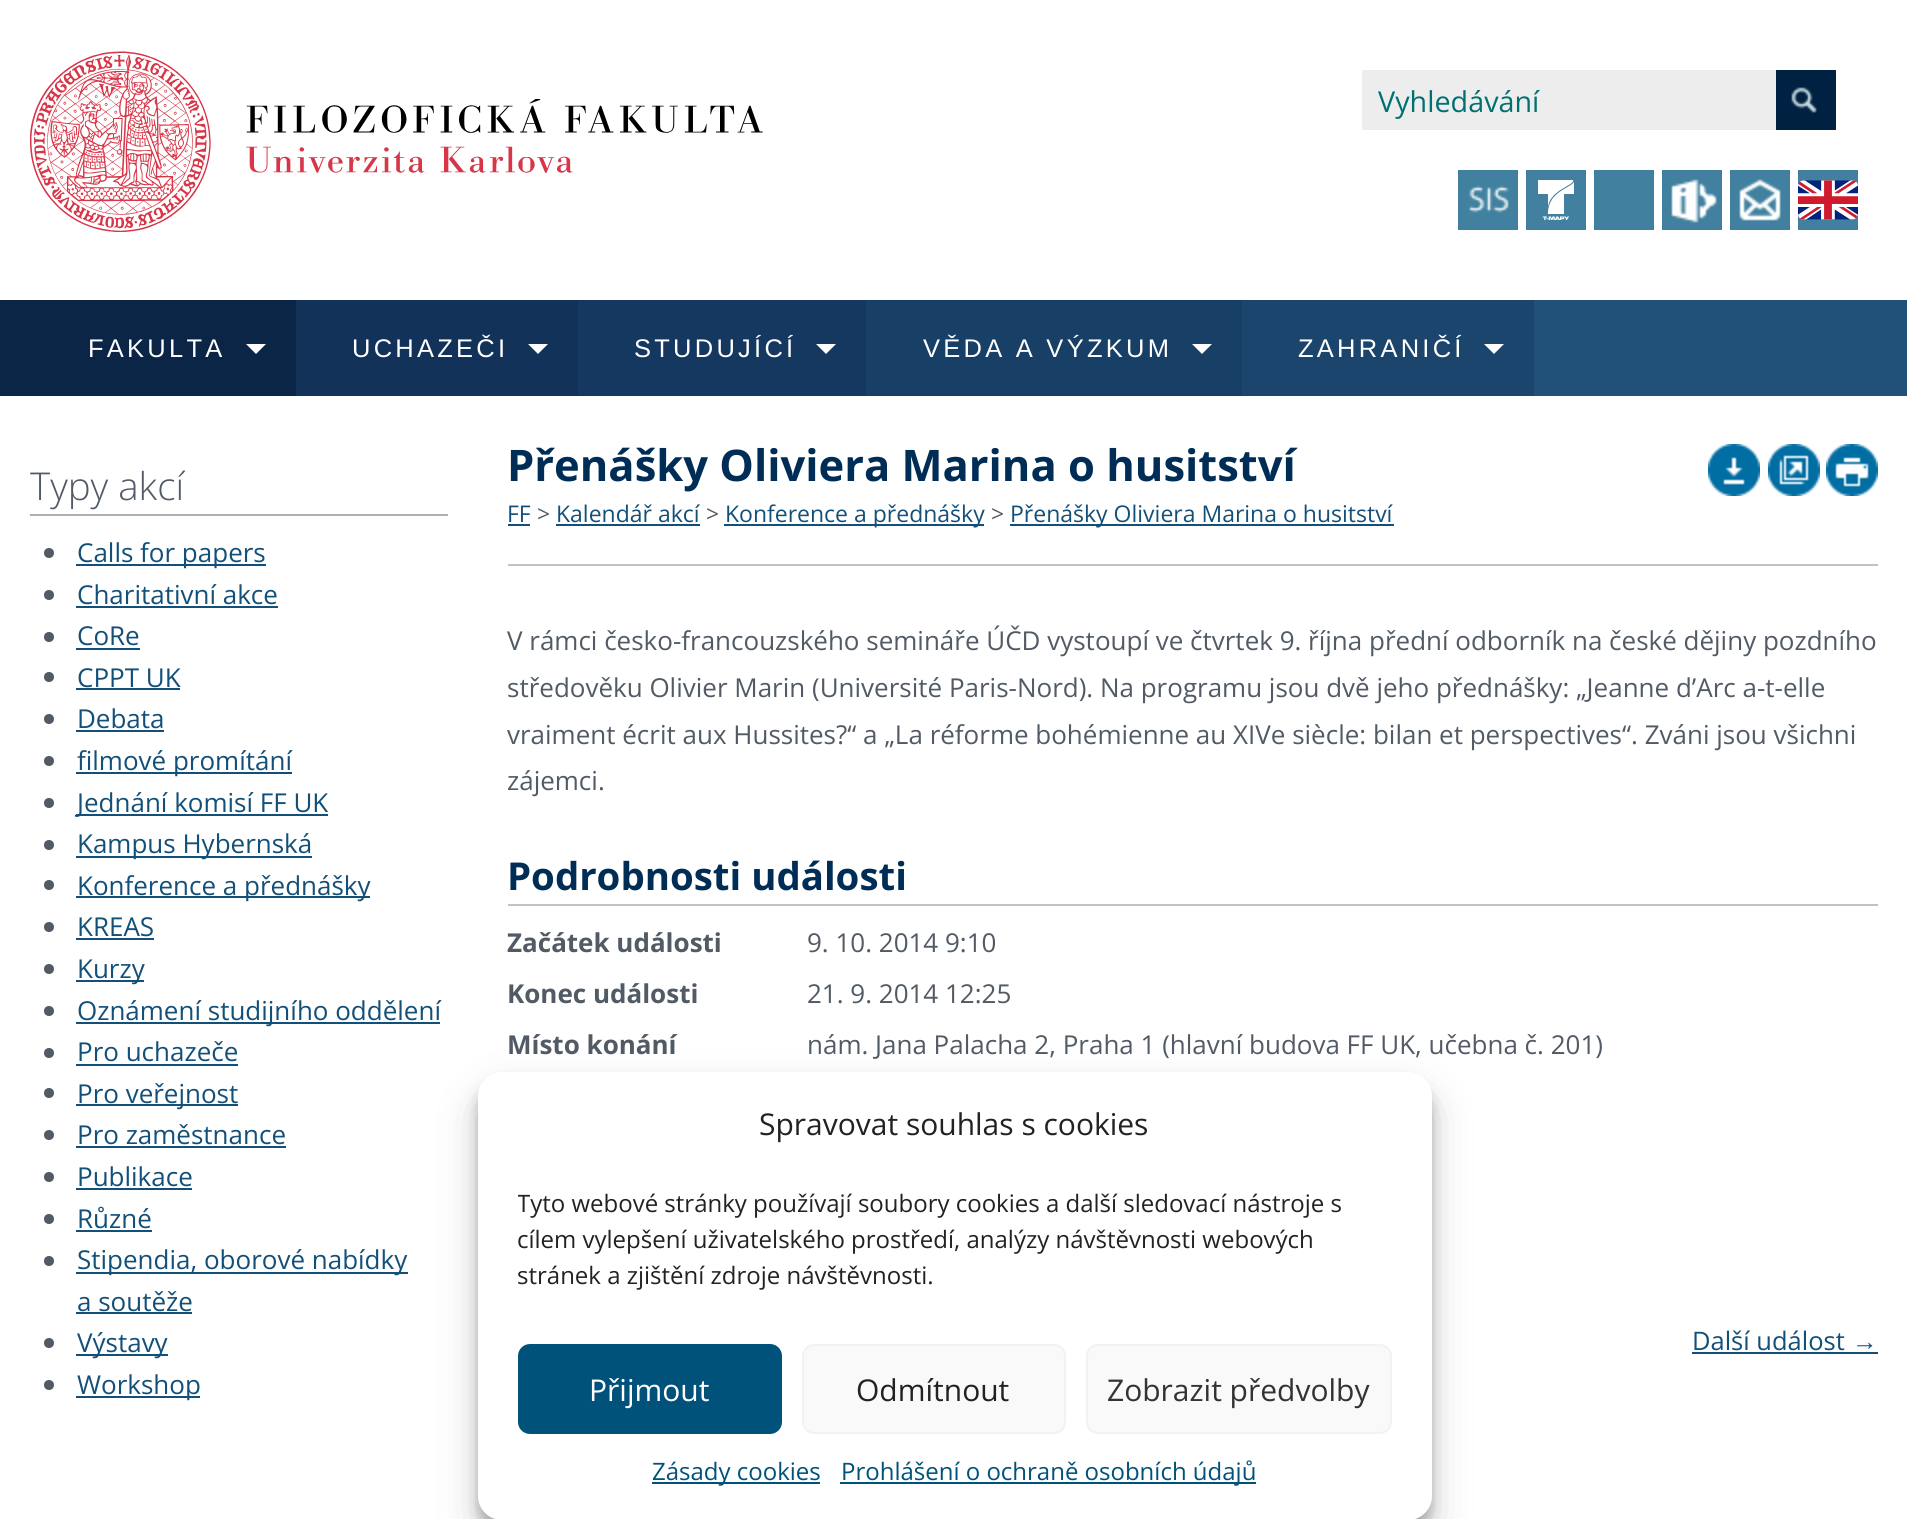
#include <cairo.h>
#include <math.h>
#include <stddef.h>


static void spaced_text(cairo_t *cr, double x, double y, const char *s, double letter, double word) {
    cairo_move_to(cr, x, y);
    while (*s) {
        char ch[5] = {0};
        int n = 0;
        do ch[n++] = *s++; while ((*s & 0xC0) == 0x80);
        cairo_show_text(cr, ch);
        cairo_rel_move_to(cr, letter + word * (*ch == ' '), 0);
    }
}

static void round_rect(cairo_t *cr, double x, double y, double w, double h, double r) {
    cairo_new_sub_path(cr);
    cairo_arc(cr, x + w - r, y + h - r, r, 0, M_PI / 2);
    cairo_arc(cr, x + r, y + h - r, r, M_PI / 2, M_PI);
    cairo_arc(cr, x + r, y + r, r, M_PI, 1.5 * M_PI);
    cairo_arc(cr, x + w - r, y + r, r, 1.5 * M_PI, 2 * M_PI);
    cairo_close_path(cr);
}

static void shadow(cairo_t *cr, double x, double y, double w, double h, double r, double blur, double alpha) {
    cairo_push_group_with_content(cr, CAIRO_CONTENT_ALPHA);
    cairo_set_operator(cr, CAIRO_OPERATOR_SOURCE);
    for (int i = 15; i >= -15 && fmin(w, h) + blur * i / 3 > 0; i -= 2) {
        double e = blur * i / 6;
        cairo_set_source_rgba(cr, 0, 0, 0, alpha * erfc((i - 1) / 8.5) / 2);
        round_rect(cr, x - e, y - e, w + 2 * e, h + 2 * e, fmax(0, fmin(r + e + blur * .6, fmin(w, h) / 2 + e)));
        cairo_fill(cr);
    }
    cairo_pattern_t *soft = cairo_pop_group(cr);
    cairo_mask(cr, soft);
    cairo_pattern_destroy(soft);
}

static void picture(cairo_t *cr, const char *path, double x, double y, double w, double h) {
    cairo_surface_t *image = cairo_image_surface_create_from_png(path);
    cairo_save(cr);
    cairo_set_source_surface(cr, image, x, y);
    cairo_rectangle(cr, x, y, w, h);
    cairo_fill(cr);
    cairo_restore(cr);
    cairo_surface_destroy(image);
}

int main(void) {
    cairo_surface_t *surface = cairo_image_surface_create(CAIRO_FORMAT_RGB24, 1907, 1519);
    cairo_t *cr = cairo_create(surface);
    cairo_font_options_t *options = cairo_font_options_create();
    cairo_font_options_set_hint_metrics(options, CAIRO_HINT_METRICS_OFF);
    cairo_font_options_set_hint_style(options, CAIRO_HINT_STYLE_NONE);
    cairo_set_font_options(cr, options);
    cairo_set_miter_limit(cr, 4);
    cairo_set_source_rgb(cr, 1, 1, 1);
    cairo_paint(cr);
    picture(cr, "img1.png", 30, 51, 733, 181);
    cairo_set_source_rgb(cr, 0.929, 0.929, 0.929);
    cairo_rectangle(cr, 1362, 70, 414, 60);
    cairo_fill(cr);
    cairo_select_font_face(cr, "Open Sans", CAIRO_FONT_SLANT_NORMAL, CAIRO_FONT_WEIGHT_NORMAL);
    cairo_set_font_size(cr, 28.75);
    cairo_set_source_rgb(cr, 0, 0.443, 0.443);
    cairo_move_to(cr, 1378, 112);
    cairo_show_text(cr, "Vyhledávání");
    cairo_set_source_rgb(cr, 0, 0.129, 0.255);
    cairo_rectangle(cr, 1776, 70, 60, 54);
    cairo_fill(cr);
    picture(cr, "img2.png", 1791, 87, 26, 26);
    cairo_set_source_rgb(cr, 0, 0.129, 0.247);
    cairo_rectangle(cr, 1776, 124, 60, 6);
    cairo_fill(cr);
    cairo_set_source_rgb(cr, 0.255, 0.506, 0.624);
    cairo_rectangle(cr, 1458, 170, 60, 60);
    cairo_fill(cr);
    picture(cr, "img3.png", 1469, 185, 40, 28);
    cairo_rectangle(cr, 1526, 170, 60, 60);
    cairo_fill(cr);
    picture(cr, "img4.png", 1538, 180, 36, 40);
    cairo_rectangle(cr, 1594, 170, 60, 60);
    cairo_fill(cr);
    cairo_rectangle(cr, 1662, 170, 60, 60);
    cairo_fill(cr);
    picture(cr, "img5.png", 1671, 179, 46, 44);
    cairo_rectangle(cr, 1730, 170, 60, 60);
    cairo_fill(cr);
    picture(cr, "img6.png", 1739, 179, 42, 42);
    cairo_rectangle(cr, 1798, 170, 60, 60);
    cairo_fill(cr);
    picture(cr, "img7.png", 1798, 180, 60, 40);
    cairo_set_source_rgb(cr, 0.043, 0.145, 0.278);
    cairo_rectangle(cr, 0, 300, 296, 96);
    cairo_fill(cr);
    cairo_set_source_rgb(cr, 0.129, 0.318, 0.471);
    cairo_rectangle(cr, 1534, 300, 373, 96);
    cairo_fill(cr);
    cairo_select_font_face(cr, "Liberation Sans", CAIRO_FONT_SLANT_NORMAL, CAIRO_FONT_WEIGHT_NORMAL);
    cairo_set_font_size(cr, 25.5);
    cairo_set_source_rgb(cr, 1, 1, 1);
    spaced_text(cr, 88, 357, "FAKULTA", 3.25, 0);
    cairo_new_path(cr);
    cairo_move_to(cr, 246, 344);
    cairo_line_to(cr, 266, 344);
    cairo_line_to(cr, 256, 354);
    cairo_close_path(cr);
    cairo_fill(cr);
    cairo_set_source_rgb(cr, 0.071, 0.196, 0.349);
    cairo_rectangle(cr, 296, 300, 282, 96);
    cairo_fill(cr);
    cairo_set_source_rgb(cr, 1, 1, 1);
    spaced_text(cr, 352, 357, "UCHAZEČI", 3.25, 0);
    cairo_new_path(cr);
    cairo_move_to(cr, 528, 344);
    cairo_line_to(cr, 548, 344);
    cairo_line_to(cr, 538, 354);
    cairo_close_path(cr);
    cairo_fill(cr);
    cairo_set_source_rgb(cr, 0.082, 0.22, 0.373);
    cairo_rectangle(cr, 578, 300, 288, 96);
    cairo_fill(cr);
    cairo_set_source_rgb(cr, 1, 1, 1);
    spaced_text(cr, 634, 357, "STUDUJÍCÍ", 3.25, 0);
    cairo_new_path(cr);
    cairo_move_to(cr, 816, 344);
    cairo_line_to(cr, 836, 344);
    cairo_line_to(cr, 826, 354);
    cairo_close_path(cr);
    cairo_fill(cr);
    cairo_set_source_rgb(cr, 0.094, 0.247, 0.4);
    cairo_rectangle(cr, 866, 300, 376, 96);
    cairo_fill(cr);
    cairo_set_source_rgb(cr, 1, 1, 1);
    spaced_text(cr, 923, 357, "VĚDA A VÝZKUM", 3.25, 0);
    cairo_new_path(cr);
    cairo_move_to(cr, 1192, 344);
    cairo_line_to(cr, 1212, 344);
    cairo_line_to(cr, 1202, 354);
    cairo_close_path(cr);
    cairo_fill(cr);
    cairo_set_source_rgb(cr, 0.106, 0.271, 0.424);
    cairo_rectangle(cr, 1242, 300, 292, 96);
    cairo_fill(cr);
    cairo_set_source_rgb(cr, 1, 1, 1);
    spaced_text(cr, 1298, 357, "ZAHRANIČÍ", 3.25, 0);
    cairo_new_path(cr);
    cairo_move_to(cr, 1484, 344);
    cairo_line_to(cr, 1504, 344);
    cairo_line_to(cr, 1494, 354);
    cairo_close_path(cr);
    cairo_fill(cr);
    cairo_set_source_rgb(cr, 0.686, 0.686, 0.686);
    cairo_rectangle(cr, 30, 514, 418, 2);
    cairo_fill(cr);
    cairo_select_font_face(cr, "Open Sans Light", CAIRO_FONT_SLANT_NORMAL, CAIRO_FONT_WEIGHT_NORMAL);
    cairo_set_font_size(cr, 38.4);
    cairo_set_source_rgb(cr, 0.322, 0.357, 0.396);
    cairo_move_to(cr, 30, 500);
    cairo_show_text(cr, "Typy akcí");
    cairo_new_path(cr);
    cairo_arc(cr, 49, 553, 5, 0, 2 * M_PI);
    cairo_fill(cr);
    cairo_set_source_rgb(cr, 0.075, 0.314, 0.475);
    cairo_rectangle(cr, 76, 564, 190, 2);
    cairo_fill(cr);
    cairo_select_font_face(cr, "Open Sans", CAIRO_FONT_SLANT_NORMAL, CAIRO_FONT_WEIGHT_NORMAL);
    cairo_set_font_size(cr, 26);
    cairo_move_to(cr, 77, 562);
    cairo_show_text(cr, "Calls for papers");
    cairo_set_source_rgb(cr, 0.322, 0.357, 0.396);
    cairo_new_path(cr);
    cairo_arc(cr, 49, 595, 5, 0, 2 * M_PI);
    cairo_fill(cr);
    cairo_set_source_rgb(cr, 0.075, 0.314, 0.475);
    cairo_move_to(cr, 77, 604);
    cairo_show_text(cr, "Charitativní akce");
    cairo_rectangle(cr, 76, 606, 202, 2);
    cairo_fill(cr);
    cairo_set_source_rgb(cr, 0.322, 0.357, 0.396);
    cairo_arc(cr, 49, 637, 5, 0, 2 * M_PI);
    cairo_fill(cr);
    cairo_set_source_rgb(cr, 0.075, 0.314, 0.475);
    cairo_move_to(cr, 77, 645);
    cairo_show_text(cr, "CoRe");
    cairo_rectangle(cr, 76, 648, 64, 2);
    cairo_fill(cr);
    cairo_set_source_rgb(cr, 0.322, 0.357, 0.396);
    cairo_arc(cr, 49, 677, 5, 0, 2 * M_PI);
    cairo_fill(cr);
    cairo_set_source_rgb(cr, 0.075, 0.314, 0.475);
    cairo_move_to(cr, 77, 687);
    cairo_show_text(cr, "CPPT UK");
    cairo_rectangle(cr, 76, 688, 104, 2);
    cairo_fill(cr);
    cairo_set_source_rgb(cr, 0.322, 0.357, 0.396);
    cairo_arc(cr, 49, 719, 5, 0, 2 * M_PI);
    cairo_fill(cr);
    cairo_set_source_rgb(cr, 0.075, 0.314, 0.475);
    cairo_move_to(cr, 77, 728);
    cairo_show_text(cr, "Debata");
    cairo_rectangle(cr, 76, 730, 88, 2);
    cairo_fill(cr);
    cairo_set_source_rgb(cr, 0.322, 0.357, 0.396);
    cairo_arc(cr, 49, 761, 5, 0, 2 * M_PI);
    cairo_fill(cr);
    cairo_set_source_rgb(cr, 0.075, 0.314, 0.475);
    cairo_rectangle(cr, 76, 772, 216, 2);
    cairo_fill(cr);
    cairo_move_to(cr, 77, 770);
    cairo_show_text(cr, "filmové promítání");
    cairo_set_source_rgb(cr, 0.322, 0.357, 0.396);
    cairo_new_path(cr);
    cairo_arc(cr, 49, 803, 5, 0, 2 * M_PI);
    cairo_fill(cr);
    cairo_set_source_rgb(cr, 0.075, 0.314, 0.475);
    cairo_rectangle(cr, 76, 814, 252, 2);
    cairo_fill(cr);
    cairo_move_to(cr, 77, 812);
    cairo_show_text(cr, "Jednání komisí FF UK");
    cairo_set_source_rgb(cr, 0.322, 0.357, 0.396);
    cairo_new_path(cr);
    cairo_arc(cr, 49, 845, 5, 0, 2 * M_PI);
    cairo_fill(cr);
    cairo_set_source_rgb(cr, 0.075, 0.314, 0.475);
    cairo_rectangle(cr, 76, 856, 236, 2);
    cairo_fill(cr);
    cairo_move_to(cr, 77, 853);
    cairo_show_text(cr, "Kampus Hybernská");
    cairo_set_source_rgb(cr, 0.322, 0.357, 0.396);
    cairo_new_path(cr);
    cairo_arc(cr, 49, 885, 5, 0, 2 * M_PI);
    cairo_fill(cr);
    cairo_set_source_rgb(cr, 0.075, 0.314, 0.475);
    cairo_rectangle(cr, 76, 896, 294, 2);
    cairo_fill(cr);
    cairo_move_to(cr, 77, 895);
    cairo_show_text(cr, "Konference a přednášky");
    cairo_set_source_rgb(cr, 0.322, 0.357, 0.396);
    cairo_new_path(cr);
    cairo_arc(cr, 49, 927, 5, 0, 2 * M_PI);
    cairo_fill(cr);
    cairo_set_source_rgb(cr, 0.075, 0.314, 0.475);
    cairo_move_to(cr, 77, 936);
    cairo_show_text(cr, "KREAS");
    cairo_rectangle(cr, 76, 938, 78, 2);
    cairo_fill(cr);
    cairo_set_source_rgb(cr, 0.322, 0.357, 0.396);
    cairo_arc(cr, 49, 969, 5, 0, 2 * M_PI);
    cairo_fill(cr);
    cairo_set_source_rgb(cr, 0.075, 0.314, 0.475);
    cairo_rectangle(cr, 76, 980, 68, 2);
    cairo_fill(cr);
    cairo_move_to(cr, 77, 978);
    cairo_show_text(cr, "Kurzy");
    cairo_set_source_rgb(cr, 0.322, 0.357, 0.396);
    cairo_new_path(cr);
    cairo_arc(cr, 49, 1011, 5, 0, 2 * M_PI);
    cairo_fill(cr);
    cairo_set_source_rgb(cr, 0.075, 0.314, 0.475);
    cairo_rectangle(cr, 76, 1022, 364, 2);
    cairo_fill(cr);
    cairo_move_to(cr, 77, 1020);
    cairo_show_text(cr, "Oznámení studijního oddělení");
    cairo_set_source_rgb(cr, 0.322, 0.357, 0.396);
    cairo_new_path(cr);
    cairo_arc(cr, 49, 1053, 5, 0, 2 * M_PI);
    cairo_fill(cr);
    cairo_set_source_rgb(cr, 0.075, 0.314, 0.475);
    cairo_move_to(cr, 77, 1061);
    cairo_show_text(cr, "Pro uchazeče");
    cairo_rectangle(cr, 76, 1064, 162, 2);
    cairo_fill(cr);
    cairo_set_source_rgb(cr, 0.322, 0.357, 0.396);
    cairo_arc(cr, 49, 1093, 5, 0, 2 * M_PI);
    cairo_fill(cr);
    cairo_set_source_rgb(cr, 0.075, 0.314, 0.475);
    cairo_rectangle(cr, 76, 1104, 162, 2);
    cairo_fill(cr);
    cairo_move_to(cr, 77, 1103);
    cairo_show_text(cr, "Pro veřejnost");
    cairo_set_source_rgb(cr, 0.322, 0.357, 0.396);
    cairo_new_path(cr);
    cairo_arc(cr, 49, 1135, 5, 0, 2 * M_PI);
    cairo_fill(cr);
    cairo_set_source_rgb(cr, 0.075, 0.314, 0.475);
    cairo_move_to(cr, 77, 1144);
    cairo_show_text(cr, "Pro zaměstnance");
    cairo_rectangle(cr, 76, 1146, 210, 2);
    cairo_fill(cr);
    cairo_set_source_rgb(cr, 0.322, 0.357, 0.396);
    cairo_arc(cr, 49, 1177, 5, 0, 2 * M_PI);
    cairo_fill(cr);
    cairo_set_source_rgb(cr, 0.075, 0.314, 0.475);
    cairo_move_to(cr, 77, 1186);
    cairo_show_text(cr, "Publikace");
    cairo_rectangle(cr, 76, 1188, 116, 2);
    cairo_fill(cr);
    cairo_set_source_rgb(cr, 0.322, 0.357, 0.396);
    cairo_arc(cr, 49, 1219, 5, 0, 2 * M_PI);
    cairo_fill(cr);
    cairo_set_source_rgb(cr, 0.075, 0.314, 0.475);
    cairo_move_to(cr, 77, 1228);
    cairo_show_text(cr, "Různé");
    cairo_rectangle(cr, 76, 1230, 76, 2);
    cairo_fill(cr);
    cairo_set_source_rgb(cr, 0.322, 0.357, 0.396);
    cairo_arc(cr, 49, 1261, 5, 0, 2 * M_PI);
    cairo_fill(cr);
    cairo_set_source_rgb(cr, 0.075, 0.314, 0.475);
    cairo_rectangle(cr, 76, 1272, 332, 2);
    cairo_fill(cr);
    cairo_move_to(cr, 77, 1269);
    cairo_show_text(cr, "Stipendia, oborové nabídky");
    cairo_move_to(cr, 77, 1311);
    cairo_show_text(cr, "a soutěže");
    cairo_rectangle(cr, 76, 1312, 116, 2);
    cairo_fill(cr);
    cairo_set_source_rgb(cr, 0.322, 0.357, 0.396);
    cairo_arc(cr, 49, 1343, 5, 0, 2 * M_PI);
    cairo_fill(cr);
    cairo_set_source_rgb(cr, 0.075, 0.314, 0.475);
    cairo_rectangle(cr, 76, 1354, 92, 2);
    cairo_fill(cr);
    cairo_move_to(cr, 77, 1352);
    cairo_show_text(cr, "Výstavy");
    cairo_set_source_rgb(cr, 0.322, 0.357, 0.396);
    cairo_new_path(cr);
    cairo_arc(cr, 49, 1385, 5, 0, 2 * M_PI);
    cairo_fill(cr);
    cairo_set_source_rgb(cr, 0.075, 0.314, 0.475);
    cairo_rectangle(cr, 76, 1396, 124, 2);
    cairo_fill(cr);
    cairo_move_to(cr, 77, 1394);
    cairo_show_text(cr, "Workshop");
    cairo_select_font_face(cr, "Open Sans", CAIRO_FONT_SLANT_NORMAL, CAIRO_FONT_WEIGHT_BOLD);
    cairo_set_font_size(cr, 43.5);
    cairo_set_source_rgb(cr, 0, 0.176, 0.337);
    cairo_move_to(cr, 507, 481);
    cairo_show_text(cr, "Přenášky Oliviera Marina o husitství");
    picture(cr, "img8.png", 1708, 444, 52, 52);
    picture(cr, "img9.png", 1768, 444, 52, 52);
    picture(cr, "img10.png", 1826, 444, 52, 52);
    cairo_set_source_rgb(cr, 0.761, 0.761, 0.761);
    cairo_rectangle(cr, 508, 564, 1370, 2);
    cairo_fill(cr);
    cairo_select_font_face(cr, "Open Sans", CAIRO_FONT_SLANT_NORMAL, CAIRO_FONT_WEIGHT_NORMAL);
    cairo_set_font_size(cr, 23);
    cairo_set_source_rgb(cr, 0.075, 0.314, 0.475);
    cairo_move_to(cr, 507, 522);
    cairo_show_text(cr, "FF");
    cairo_rectangle(cr, 508, 524, 22, 2);
    cairo_fill(cr);
    cairo_set_source_rgb(cr, 0.322, 0.357, 0.396);
    cairo_move_to(cr, 537, 522);
    cairo_show_text(cr, ">");
    cairo_set_source_rgb(cr, 0.075, 0.314, 0.475);
    cairo_move_to(cr, 556, 522);
    cairo_show_text(cr, "Kalendář akcí");
    cairo_rectangle(cr, 556, 524, 144, 2);
    cairo_fill(cr);
    cairo_set_source_rgb(cr, 0.322, 0.357, 0.396);
    cairo_move_to(cr, 706, 522);
    cairo_show_text(cr, ">");
    cairo_set_source_rgb(cr, 0.075, 0.314, 0.475);
    cairo_rectangle(cr, 724, 524, 260, 2);
    cairo_fill(cr);
    cairo_move_to(cr, 725, 522);
    cairo_show_text(cr, "Konference a přednášky");
    cairo_set_source_rgb(cr, 0.322, 0.357, 0.396);
    cairo_move_to(cr, 991, 522);
    cairo_show_text(cr, ">");
    cairo_set_source_rgb(cr, 0.075, 0.314, 0.475);
    cairo_rectangle(cr, 1010, 524, 384, 2);
    cairo_fill(cr);
    cairo_move_to(cr, 1010, 522);
    cairo_show_text(cr, "Přenášky Oliviera Marina o husitství");
    cairo_set_font_size(cr, 26);
    cairo_set_source_rgb(cr, 0.322, 0.357, 0.396);
    cairo_move_to(cr, 507, 650);
    cairo_show_text(cr, "V rámci česko-francouzského semináře ÚČD vystoupí ve čtvrtek 9. října přední odborník na české dějiny pozdního");
    cairo_move_to(cr, 507, 697);
    cairo_show_text(cr, "středověku Olivier Marin (Université Paris-Nord). Na programu jsou dvě jeho přednášky: „Jeanne d’Arc a-t-elle");
    cairo_move_to(cr, 507, 744);
    cairo_show_text(cr, "vraiment écrit aux Hussites?“ a „La réforme bohémienne au XIVe siècle: bilan et perspectives“. Zváni jsou všichni");
    cairo_move_to(cr, 507, 790);
    cairo_show_text(cr, "zájemci.");
    cairo_set_source_rgb(cr, 0.761, 0.761, 0.761);
    cairo_rectangle(cr, 508, 904, 1370, 2);
    cairo_fill(cr);
    cairo_select_font_face(cr, "Open Sans", CAIRO_FONT_SLANT_NORMAL, CAIRO_FONT_WEIGHT_BOLD);
    cairo_set_font_size(cr, 38.4);
    cairo_set_source_rgb(cr, 0, 0.176, 0.337);
    cairo_move_to(cr, 507, 890);
    cairo_show_text(cr, "Podrobnosti události");
    cairo_set_font_size(cr, 26);
    cairo_set_source_rgb(cr, 0.322, 0.357, 0.396);
    cairo_move_to(cr, 507, 952);
    cairo_show_text(cr, "Začátek události");
    cairo_select_font_face(cr, "Open Sans", CAIRO_FONT_SLANT_NORMAL, CAIRO_FONT_WEIGHT_NORMAL);
    cairo_move_to(cr, 807, 952);
    cairo_show_text(cr, "9. 10. 2014 9:10");
    cairo_select_font_face(cr, "Open Sans", CAIRO_FONT_SLANT_NORMAL, CAIRO_FONT_WEIGHT_BOLD);
    cairo_move_to(cr, 507, 1003);
    cairo_show_text(cr, "Konec události");
    cairo_select_font_face(cr, "Open Sans", CAIRO_FONT_SLANT_NORMAL, CAIRO_FONT_WEIGHT_NORMAL);
    cairo_move_to(cr, 807, 1003);
    cairo_show_text(cr, "21. 9. 2014 12:25");
    cairo_select_font_face(cr, "Open Sans", CAIRO_FONT_SLANT_NORMAL, CAIRO_FONT_WEIGHT_BOLD);
    cairo_move_to(cr, 507, 1054);
    cairo_show_text(cr, "Místo konání");
    cairo_select_font_face(cr, "Open Sans", CAIRO_FONT_SLANT_NORMAL, CAIRO_FONT_WEIGHT_NORMAL);
    cairo_move_to(cr, 807, 1054);
    cairo_show_text(cr, "nám. Jana Palacha 2, Praha 1 (hlavní budova FF UK, učebna č. 201)");
    cairo_set_font_size(cr, 25.5);
    cairo_set_source_rgb(cr, 0.075, 0.314, 0.475);
    cairo_move_to(cr, 1692, 1350);
    cairo_show_text(cr, "Další událost");
    cairo_select_font_face(cr, "Liberation Sans", CAIRO_FONT_SLANT_NORMAL, CAIRO_FONT_WEIGHT_NORMAL);
    cairo_move_to(cr, 1852, 1350);
    cairo_show_text(cr, "→");
    cairo_rectangle(cr, 1692, 1352, 186, 2);
    cairo_fill(cr);
    cairo_set_source_rgb(cr, 0, 0, 0);
    shadow(cr, 478, 1084, 954, 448, 24, 6, 0.23);
    shadow(cr, 478, 1092, 954, 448, 24, 20, 0.19);
    cairo_set_source_rgb(cr, 1, 1, 1);
    round_rect(cr, 478, 1072, 954, 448, 24);
    cairo_fill(cr);
    cairo_select_font_face(cr, "Open Sans", CAIRO_FONT_SLANT_NORMAL, CAIRO_FONT_WEIGHT_NORMAL);
    cairo_set_font_size(cr, 30);
    cairo_set_source_rgb(cr, 0.133, 0.133, 0.133);
    cairo_move_to(cr, 759, 1135);
    cairo_show_text(cr, "Spravovat souhlas s cookies");
    cairo_save(cr);
    cairo_rectangle(cr, 518, 1186, 874, 118);
    cairo_clip(cr);
    cairo_set_font_size(cr, 24);
    cairo_move_to(cr, 517, 1212);
    cairo_show_text(cr, "Tyto webové stránky používají soubory cookies a další sledovací nástroje s");
    cairo_restore(cr);
    cairo_set_font_size(cr, 24);
    cairo_move_to(cr, 517, 1248);
    cairo_show_text(cr, "cílem vylepšení uživatelského prostředí, analýzy návštěvnosti webových");
    cairo_move_to(cr, 517, 1284);
    cairo_show_text(cr, "stránek a zjištění zdroje návštěvnosti.");
    cairo_set_source_rgb(cr, 0, 0.322, 0.482);
    round_rect(cr, 519, 1345, 262, 88, 11);
    cairo_fill_preserve(cr);
    cairo_stroke(cr);
    cairo_set_font_size(cr, 30);
    cairo_set_source_rgb(cr, 1, 1, 1);
    cairo_move_to(cr, 589, 1401);
    cairo_show_text(cr, "Přijmout");
    cairo_set_source_rgb(cr, 0.976, 0.976, 0.976);
    round_rect(cr, 803, 1345, 262, 88, 11);
    cairo_fill_preserve(cr);
    cairo_set_source_rgb(cr, 0.949, 0.949, 0.949);
    cairo_stroke(cr);
    cairo_set_source_rgb(cr, 0.133, 0.133, 0.133);
    cairo_move_to(cr, 856, 1401);
    cairo_show_text(cr, "Odmítnout");
    cairo_set_source_rgb(cr, 0.976, 0.976, 0.976);
    round_rect(cr, 1087, 1345, 304, 88, 11);
    cairo_fill_preserve(cr);
    cairo_set_source_rgb(cr, 0.949, 0.949, 0.949);
    cairo_stroke(cr);
    cairo_set_source_rgb(cr, 0.2, 0.2, 0.2);
    cairo_move_to(cr, 1107, 1401);
    cairo_show_text(cr, "Zobrazit předvolby");
    cairo_set_source_rgb(cr, 0, 0.322, 0.482);
    cairo_rectangle(cr, 652, 1482, 168, 2);
    cairo_fill(cr);
    cairo_set_font_size(cr, 24);
    cairo_move_to(cr, 652, 1480);
    cairo_show_text(cr, "Zásady cookies");
    cairo_rectangle(cr, 840, 1482, 416, 2);
    cairo_fill(cr);
    cairo_move_to(cr, 841, 1480);
    cairo_show_text(cr, "Prohlášení o ochraně osobních údajů");
    cairo_surface_write_to_png(surface, "page.png");
    cairo_font_options_destroy(options);
    cairo_destroy(cr);
    cairo_surface_destroy(surface);
    return 0;
}
